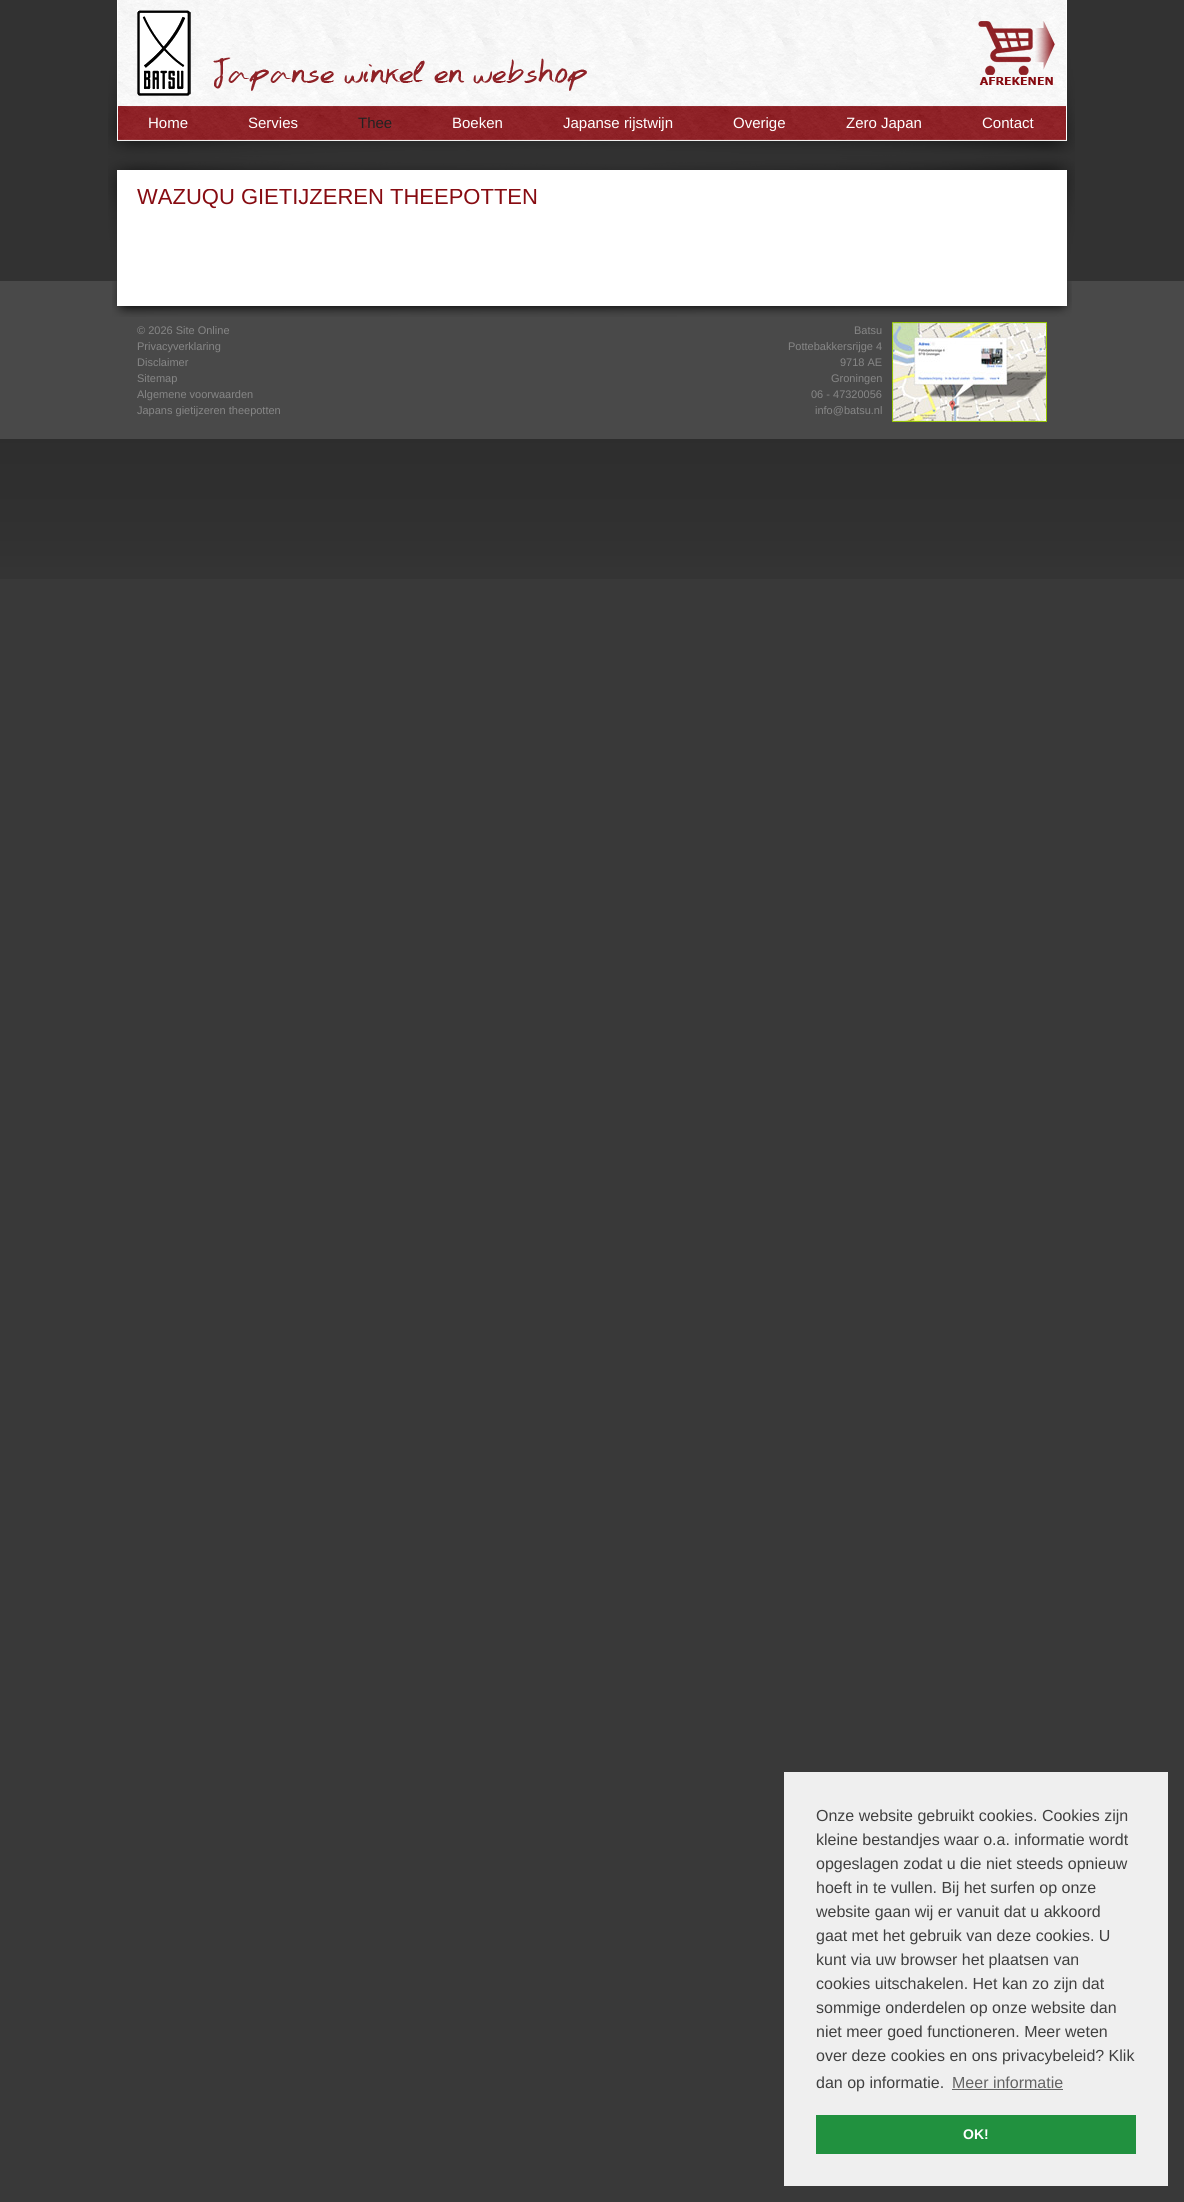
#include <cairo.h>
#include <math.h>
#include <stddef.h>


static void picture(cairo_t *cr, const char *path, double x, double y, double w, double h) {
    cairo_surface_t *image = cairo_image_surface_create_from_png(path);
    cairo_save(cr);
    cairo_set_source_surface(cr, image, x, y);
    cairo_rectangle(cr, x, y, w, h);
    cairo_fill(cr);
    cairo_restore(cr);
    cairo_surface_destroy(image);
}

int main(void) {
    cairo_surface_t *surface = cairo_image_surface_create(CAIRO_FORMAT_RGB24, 1184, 2202);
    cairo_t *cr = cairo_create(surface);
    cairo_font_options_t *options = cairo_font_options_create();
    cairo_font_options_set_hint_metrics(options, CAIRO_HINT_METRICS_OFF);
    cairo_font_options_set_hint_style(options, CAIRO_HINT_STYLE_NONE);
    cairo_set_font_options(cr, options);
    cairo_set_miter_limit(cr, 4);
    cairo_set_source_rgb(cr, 0.224, 0.224, 0.224);
    cairo_paint(cr);
    picture(cr, "img1.png", 0, 0, 1184, 579);
    picture(cr, "img2.png", 108, 0, 967, 281);
    picture(cr, "img3.png", 137, 10, 54, 86);
    picture(cr, "img4.png", 213, 57, 374, 34);
    picture(cr, "img5.png", 978, 21, 77, 64);
    cairo_select_font_face(cr, "Liberation Sans", CAIRO_FONT_SLANT_NORMAL, CAIRO_FONT_WEIGHT_NORMAL);
    cairo_set_font_size(cr, 15);
    cairo_set_source_rgb(cr, 1, 1, 1);
    cairo_move_to(cr, 148, 128);
    cairo_show_text(cr, "Home");
    cairo_move_to(cr, 248, 128);
    cairo_show_text(cr, "Servies");
    cairo_set_source_rgb(cr, 0.133, 0.133, 0.133);
    cairo_move_to(cr, 358, 128);
    cairo_show_text(cr, "Thee");
    cairo_set_source_rgb(cr, 1, 1, 1);
    cairo_move_to(cr, 452, 128);
    cairo_show_text(cr, "Boeken");
    cairo_move_to(cr, 563, 128);
    cairo_show_text(cr, "Japanse rijstwijn");
    cairo_move_to(cr, 733, 128);
    cairo_show_text(cr, "Overige");
    cairo_move_to(cr, 846, 128);
    cairo_show_text(cr, "Zero Japan");
    cairo_move_to(cr, 982, 128);
    cairo_show_text(cr, "Contact");
    cairo_save(cr);
    cairo_rectangle(cr, 117, 189, 950, 92);
    cairo_clip(cr);
    cairo_set_font_size(cr, 22);
    cairo_set_source_rgb(cr, 0.529, 0.043, 0.067);
    cairo_move_to(cr, 137, 204);
    cairo_show_text(cr, "WAZUQU GIETIJZEREN THEEPOTTEN");
    cairo_restore(cr);
    cairo_set_source_rgb(cr, 0.286, 0.286, 0.286);
    cairo_rectangle(cr, 0, 281, 1184, 158);
    cairo_fill(cr);
    picture(cr, "img6.png", 112, 281, 960, 36);
    cairo_set_font_size(cr, 11);
    cairo_set_source_rgb(cr, 0.525, 0.525, 0.525);
    cairo_move_to(cr, 137, 334);
    cairo_show_text(cr, "© 2026 Site Online");
    cairo_move_to(cr, 137, 350);
    cairo_show_text(cr, "Privacyverklaring");
    cairo_move_to(cr, 137, 366);
    cairo_show_text(cr, "Disclaimer");
    cairo_move_to(cr, 137, 382);
    cairo_show_text(cr, "Sitemap");
    cairo_move_to(cr, 137, 398);
    cairo_show_text(cr, "Algemene voorwaarden");
    cairo_move_to(cr, 137, 414);
    cairo_show_text(cr, "Japans gietijzeren theepotten");
    cairo_move_to(cr, 854, 334);
    cairo_show_text(cr, "Batsu");
    cairo_move_to(cr, 788, 350);
    cairo_show_text(cr, "Pottebakkersrijge 4");
    cairo_move_to(cr, 840, 366);
    cairo_show_text(cr, "9718 AE");
    cairo_move_to(cr, 831, 382);
    cairo_show_text(cr, "Groningen");
    cairo_move_to(cr, 811, 398);
    cairo_show_text(cr, "06 - 47320056");
    cairo_move_to(cr, 815, 414);
    cairo_show_text(cr, "info@batsu.nl");
    picture(cr, "img7.png", 892, 322, 155, 100);
    cairo_set_source_rgb(cr, 0.937, 0.937, 0.937);
    cairo_rectangle(cr, 784, 1772, 384, 414);
    cairo_fill(cr);
    cairo_set_font_size(cr, 16);
    cairo_set_source_rgb(cr, 0.251, 0.251, 0.251);
    cairo_move_to(cr, 816, 1821);
    cairo_show_text(cr, "Onze website gebruikt cookies. Cookies zijn");
    cairo_move_to(cr, 816, 1845);
    cairo_show_text(cr, "kleine bestandjes waar o.a. informatie wordt");
    cairo_move_to(cr, 816, 1869);
    cairo_show_text(cr, "opgeslagen zodat u die niet steeds opnieuw");
    cairo_move_to(cr, 816, 1893);
    cairo_show_text(cr, "hoeft in te vullen. Bij het surfen op onze");
    cairo_move_to(cr, 816, 1917);
    cairo_show_text(cr, "website gaan wij er vanuit dat u akkoord");
    cairo_move_to(cr, 816, 1941);
    cairo_show_text(cr, "gaat met het gebruik van deze cookies. U");
    cairo_move_to(cr, 816, 1965);
    cairo_show_text(cr, "kunt via uw browser het plaatsen van");
    cairo_move_to(cr, 816, 1989);
    cairo_show_text(cr, "cookies uitschakelen. Het kan zo zijn dat");
    cairo_move_to(cr, 816, 2013);
    cairo_show_text(cr, "sommige onderdelen op onze website dan");
    cairo_move_to(cr, 816, 2037);
    cairo_show_text(cr, "niet meer goed functioneren. Meer weten");
    cairo_move_to(cr, 816, 2061);
    cairo_show_text(cr, "over deze cookies en ons privacybeleid? Klik");
    cairo_move_to(cr, 816, 2088);
    cairo_show_text(cr, "dan op informatie.");
    cairo_set_source_rgb(cr, 0.388, 0.388, 0.388);
    cairo_move_to(cr, 952, 2088);
    cairo_show_text(cr, "Meer informatie");
    cairo_rectangle(cr, 952, 2089, 111, 1);
    cairo_fill(cr);
    cairo_set_source_rgb(cr, 0.129, 0.569, 0.247);
    cairo_rectangle(cr, 816, 2115, 320, 39);
    cairo_fill(cr);
    cairo_select_font_face(cr, "Liberation Sans", CAIRO_FONT_SLANT_NORMAL, CAIRO_FONT_WEIGHT_BOLD);
    cairo_set_font_size(cr, 14);
    cairo_set_source_rgb(cr, 1, 1, 1);
    cairo_move_to(cr, 963, 2139);
    cairo_show_text(cr, "OK!");
    cairo_surface_write_to_png(surface, "page.png");
    cairo_font_options_destroy(options);
    cairo_destroy(cr);
    cairo_surface_destroy(surface);
    return 0;
}
